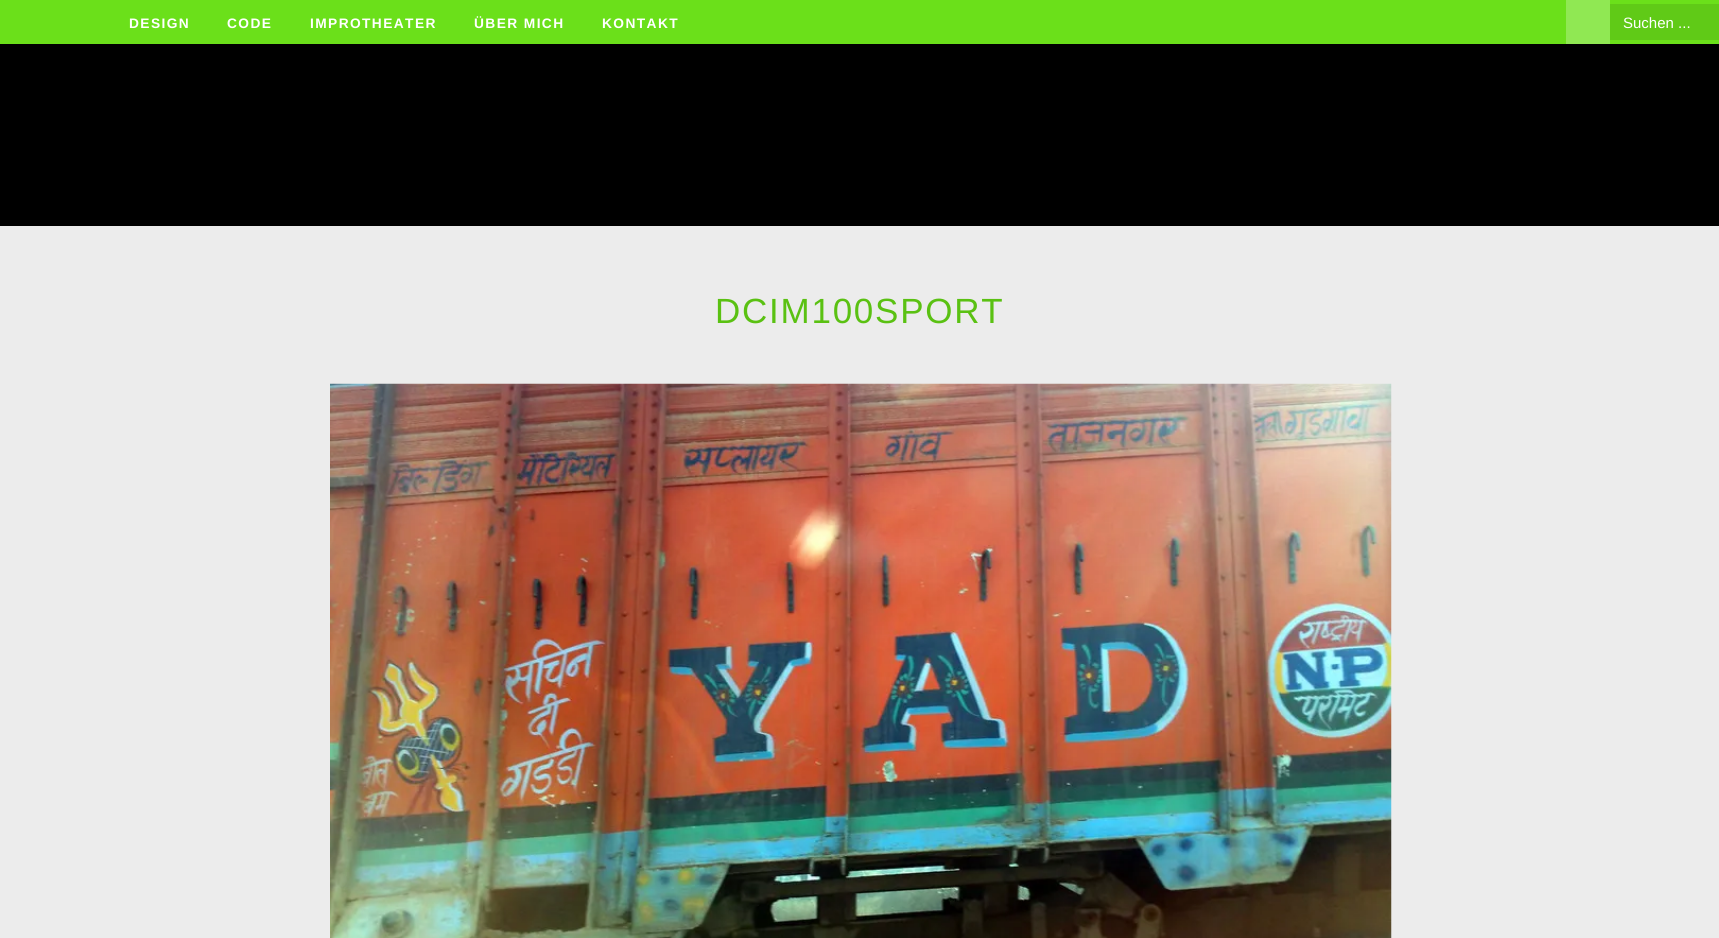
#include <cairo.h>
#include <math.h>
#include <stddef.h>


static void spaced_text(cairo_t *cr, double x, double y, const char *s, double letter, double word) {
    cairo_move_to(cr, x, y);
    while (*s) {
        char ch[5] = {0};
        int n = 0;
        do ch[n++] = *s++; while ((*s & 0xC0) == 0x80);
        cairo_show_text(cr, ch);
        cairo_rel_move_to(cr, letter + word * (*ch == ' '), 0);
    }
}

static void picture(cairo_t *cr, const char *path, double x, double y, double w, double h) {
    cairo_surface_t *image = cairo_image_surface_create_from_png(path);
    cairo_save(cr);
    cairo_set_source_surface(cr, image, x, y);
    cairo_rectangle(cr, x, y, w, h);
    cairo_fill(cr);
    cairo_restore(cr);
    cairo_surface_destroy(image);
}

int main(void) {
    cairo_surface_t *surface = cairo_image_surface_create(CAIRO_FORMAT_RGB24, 1719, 938);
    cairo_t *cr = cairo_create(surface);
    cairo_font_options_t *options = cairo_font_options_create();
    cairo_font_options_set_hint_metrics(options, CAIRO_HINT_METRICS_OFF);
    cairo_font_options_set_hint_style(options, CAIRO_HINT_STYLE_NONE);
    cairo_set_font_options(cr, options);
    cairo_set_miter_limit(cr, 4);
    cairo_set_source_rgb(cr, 0.922, 0.922, 0.922);
    cairo_paint(cr);
    cairo_set_source_rgb(cr, 0.42, 0.878, 0.102);
    cairo_rectangle(cr, 0, 0, 1719, 44);
    cairo_fill(cr);
    cairo_select_font_face(cr, "Liberation Sans", CAIRO_FONT_SLANT_NORMAL, CAIRO_FONT_WEIGHT_BOLD);
    cairo_set_font_size(cr, 13.75);
    cairo_set_source_rgb(cr, 1, 1, 1);
    spaced_text(cr, 129, 28, "DESIGN", 1.4, 0);
    spaced_text(cr, 227, 28, "CODE", 1.4, 0);
    spaced_text(cr, 310, 28, "IMPROTHEATER", 1.4, 0);
    spaced_text(cr, 474, 28, "ÜBER MICH", 1.4, 0);
    spaced_text(cr, 602, 28, "KONTAKT", 1.4, 0);
    cairo_set_source_rgb(cr, 0.565, 0.91, 0.325);
    cairo_rectangle(cr, 1566, 0, 44, 44);
    cairo_fill(cr);
    cairo_set_source_rgb(cr, 0.376, 0.792, 0.09);
    cairo_rectangle(cr, 1610, 4, 109, 36);
    cairo_fill(cr);
    cairo_select_font_face(cr, "Liberation Sans", CAIRO_FONT_SLANT_NORMAL, CAIRO_FONT_WEIGHT_NORMAL);
    cairo_set_font_size(cr, 15);
    cairo_set_source_rgb(cr, 1, 1, 1);
    cairo_move_to(cr, 1623, 28);
    cairo_show_text(cr, "Suchen ...");
    cairo_set_source_rgb(cr, 0, 0, 0);
    cairo_rectangle(cr, 0, 44, 1719, 182);
    cairo_fill(cr);
    cairo_set_font_size(cr, 35);
    cairo_set_source_rgb(cr, 0.353, 0.757, 0.071);
    spaced_text(cr, 715, 323, "DCIM100SPORT", 1.75, 0);
    picture(cr, "img1.png", 330, 383, 1062, 555);
    cairo_surface_write_to_png(surface, "page.png");
    cairo_font_options_destroy(options);
    cairo_destroy(cr);
    cairo_surface_destroy(surface);
    return 0;
}
